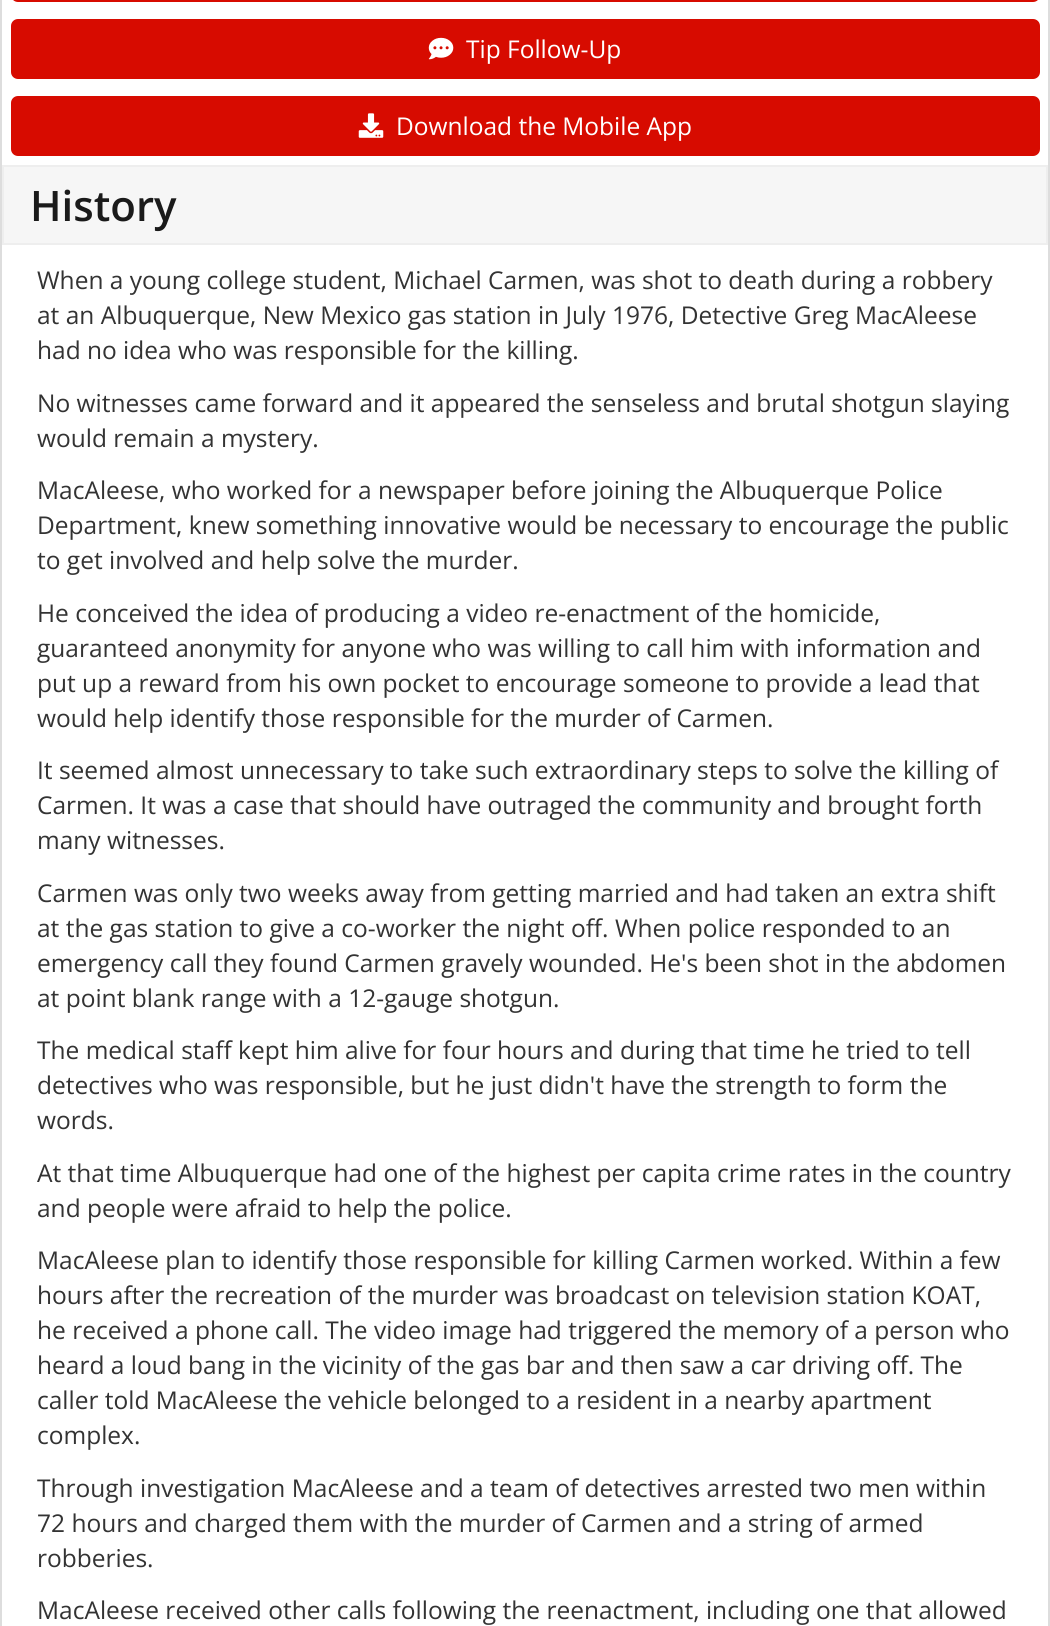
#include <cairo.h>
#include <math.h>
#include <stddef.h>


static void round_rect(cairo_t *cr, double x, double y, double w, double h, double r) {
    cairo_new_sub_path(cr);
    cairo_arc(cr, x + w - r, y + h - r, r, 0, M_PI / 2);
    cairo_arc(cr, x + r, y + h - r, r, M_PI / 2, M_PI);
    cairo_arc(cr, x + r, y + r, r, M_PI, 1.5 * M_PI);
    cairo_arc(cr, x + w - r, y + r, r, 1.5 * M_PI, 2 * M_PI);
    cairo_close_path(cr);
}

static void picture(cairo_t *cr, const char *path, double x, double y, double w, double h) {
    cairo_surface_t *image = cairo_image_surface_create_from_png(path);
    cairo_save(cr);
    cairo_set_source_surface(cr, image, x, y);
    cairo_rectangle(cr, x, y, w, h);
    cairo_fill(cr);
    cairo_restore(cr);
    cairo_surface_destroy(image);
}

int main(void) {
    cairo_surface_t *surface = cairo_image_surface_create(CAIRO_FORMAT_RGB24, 1050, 1626);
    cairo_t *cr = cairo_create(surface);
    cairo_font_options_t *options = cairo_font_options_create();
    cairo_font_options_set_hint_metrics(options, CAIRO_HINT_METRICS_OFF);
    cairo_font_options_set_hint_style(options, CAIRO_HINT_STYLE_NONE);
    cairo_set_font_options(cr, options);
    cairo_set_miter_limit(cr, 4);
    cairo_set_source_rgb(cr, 1, 1, 1);
    cairo_paint(cr);
    cairo_set_source_rgb(cr, 0.867, 0.867, 0.867);
    cairo_rectangle(cr, 1048, 0, 2, 1626);
    cairo_fill(cr);
    cairo_rectangle(cr, 0, 0, 2, 1626);
    cairo_fill(cr);
    round_rect(cr, 12, -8, 1027, 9, 6);
    cairo_set_source_rgb(cr, 0.843, 0.043, 0);
    cairo_stroke(cr);
    round_rect(cr, 12, 20, 1027, 58, 6);
    cairo_fill_preserve(cr);
    cairo_stroke(cr);
    picture(cr, "img1.png", 428, 37, 26, 23);
    cairo_select_font_face(cr, "Open Sans", CAIRO_FONT_SLANT_NORMAL, CAIRO_FONT_WEIGHT_NORMAL);
    cairo_set_font_size(cr, 24.5);
    cairo_set_source_rgb(cr, 1, 1, 1);
    cairo_move_to(cr, 466, 58);
    cairo_show_text(cr, "Tip Follow-Up");
    cairo_set_source_rgb(cr, 0.843, 0.043, 0);
    round_rect(cr, 12, 97, 1027, 58, 6);
    cairo_fill_preserve(cr);
    cairo_stroke(cr);
    picture(cr, "img2.png", 358, 113, 26, 25);
    cairo_set_source_rgb(cr, 1, 1, 1);
    cairo_move_to(cr, 396, 135);
    cairo_show_text(cr, "Download the Mobile App");
    cairo_set_source_rgb(cr, 0.961, 0.961, 0.961);
    cairo_rectangle(cr, 3, 166, 1044, 78);
    cairo_fill_preserve(cr);
    cairo_set_source_rgb(cr, 0.933, 0.933, 0.933);
    cairo_stroke(cr);
    cairo_select_font_face(cr, "Open Sans SemiBold", CAIRO_FONT_SLANT_NORMAL, CAIRO_FONT_WEIGHT_NORMAL);
    cairo_set_font_size(cr, 42);
    cairo_set_source_rgb(cr, 0.102, 0.102, 0.102);
    cairo_move_to(cr, 30, 221);
    cairo_show_text(cr, "History");
    cairo_select_font_face(cr, "Open Sans", CAIRO_FONT_SLANT_NORMAL, CAIRO_FONT_WEIGHT_NORMAL);
    cairo_set_font_size(cr, 24.5);
    cairo_set_source_rgb(cr, 0.2, 0.2, 0.2);
    cairo_move_to(cr, 37, 289);
    cairo_show_text(cr, "When a young college student, Michael Carmen, was shot to death during a robbery");
    cairo_move_to(cr, 37, 324);
    cairo_show_text(cr, "at an Albuquerque, New Mexico gas station in July 1976, Detective Greg MacAleese");
    cairo_move_to(cr, 37, 359);
    cairo_show_text(cr, "had no idea who was responsible for the killing.");
    cairo_move_to(cr, 37, 412);
    cairo_show_text(cr, "No witnesses came forward and it appeared the senseless and brutal shotgun slaying");
    cairo_move_to(cr, 37, 447);
    cairo_show_text(cr, "would remain a mystery.");
    cairo_move_to(cr, 37, 499);
    cairo_show_text(cr, "MacAleese, who worked for a newspaper before joining the Albuquerque Police");
    cairo_move_to(cr, 37, 534);
    cairo_show_text(cr, "Department, knew something innovative would be necessary to encourage the public");
    cairo_move_to(cr, 37, 569);
    cairo_show_text(cr, "to get involved and help solve the murder.");
    cairo_move_to(cr, 37, 622);
    cairo_show_text(cr, "He conceived the idea of producing a video re-enactment of the homicide,");
    cairo_move_to(cr, 37, 657);
    cairo_show_text(cr, "guaranteed anonymity for anyone who was willing to call him with information and");
    cairo_move_to(cr, 37, 692);
    cairo_show_text(cr, "put up a reward from his own pocket to encourage someone to provide a lead that");
    cairo_move_to(cr, 37, 727);
    cairo_show_text(cr, "would help identify those responsible for the murder of Carmen.");
    cairo_move_to(cr, 37, 779);
    cairo_show_text(cr, "It seemed almost unnecessary to take such extraordinary steps to solve the killing of");
    cairo_move_to(cr, 37, 814);
    cairo_show_text(cr, "Carmen. It was a case that should have outraged the community and brought forth");
    cairo_move_to(cr, 37, 849);
    cairo_show_text(cr, "many witnesses.");
    cairo_move_to(cr, 37, 902);
    cairo_show_text(cr, "Carmen was only two weeks away from getting married and had taken an extra shift");
    cairo_move_to(cr, 37, 937);
    cairo_show_text(cr, "at the gas station to give a co-worker the night off. When police responded to an");
    cairo_move_to(cr, 37, 972);
    cairo_show_text(cr, "emergency call they found Carmen gravely wounded. He's been shot in the abdomen");
    cairo_move_to(cr, 37, 1007);
    cairo_show_text(cr, "at point blank range with a 12-gauge shotgun.");
    cairo_move_to(cr, 37, 1059);
    cairo_show_text(cr, "The medical staff kept him alive for four hours and during that time he tried to tell");
    cairo_move_to(cr, 37, 1094);
    cairo_show_text(cr, "detectives who was responsible, but he just didn't have the strength to form the");
    cairo_move_to(cr, 37, 1129);
    cairo_show_text(cr, "words.");
    cairo_move_to(cr, 37, 1182);
    cairo_show_text(cr, "At that time Albuquerque had one of the highest per capita crime rates in the country");
    cairo_move_to(cr, 37, 1217);
    cairo_show_text(cr, "and people were afraid to help the police.");
    cairo_move_to(cr, 37, 1269);
    cairo_show_text(cr, "MacAleese plan to identify those responsible for killing Carmen worked. Within a few");
    cairo_move_to(cr, 37, 1304);
    cairo_show_text(cr, "hours after the recreation of the murder was broadcast on television station KOAT,");
    cairo_move_to(cr, 37, 1339);
    cairo_show_text(cr, "he received a phone call. The video image had triggered the memory of a person who");
    cairo_move_to(cr, 37, 1374);
    cairo_show_text(cr, "heard a loud bang in the vicinity of the gas bar and then saw a car driving off. The");
    cairo_move_to(cr, 37, 1409);
    cairo_show_text(cr, "caller told MacAleese the vehicle belonged to a resident in a nearby apartment");
    cairo_move_to(cr, 37, 1444);
    cairo_show_text(cr, "complex.");
    cairo_move_to(cr, 37, 1497);
    cairo_show_text(cr, "Through investigation MacAleese and a team of detectives arrested two men within");
    cairo_move_to(cr, 37, 1532);
    cairo_show_text(cr, "72 hours and charged them with the murder of Carmen and a string of armed");
    cairo_move_to(cr, 37, 1567);
    cairo_show_text(cr, "robberies.");
    cairo_move_to(cr, 37, 1619);
    cairo_show_text(cr, "MacAleese received other calls following the reenactment, including one that allowed");
    cairo_surface_write_to_png(surface, "page.png");
    cairo_font_options_destroy(options);
    cairo_destroy(cr);
    cairo_surface_destroy(surface);
    return 0;
}
